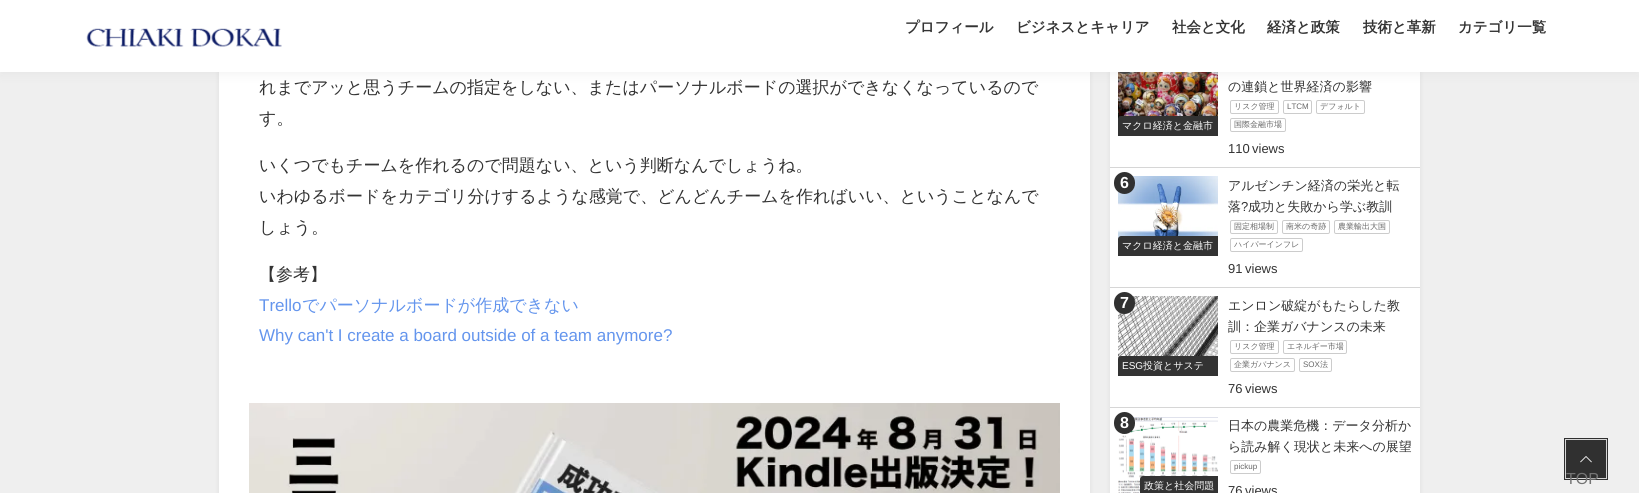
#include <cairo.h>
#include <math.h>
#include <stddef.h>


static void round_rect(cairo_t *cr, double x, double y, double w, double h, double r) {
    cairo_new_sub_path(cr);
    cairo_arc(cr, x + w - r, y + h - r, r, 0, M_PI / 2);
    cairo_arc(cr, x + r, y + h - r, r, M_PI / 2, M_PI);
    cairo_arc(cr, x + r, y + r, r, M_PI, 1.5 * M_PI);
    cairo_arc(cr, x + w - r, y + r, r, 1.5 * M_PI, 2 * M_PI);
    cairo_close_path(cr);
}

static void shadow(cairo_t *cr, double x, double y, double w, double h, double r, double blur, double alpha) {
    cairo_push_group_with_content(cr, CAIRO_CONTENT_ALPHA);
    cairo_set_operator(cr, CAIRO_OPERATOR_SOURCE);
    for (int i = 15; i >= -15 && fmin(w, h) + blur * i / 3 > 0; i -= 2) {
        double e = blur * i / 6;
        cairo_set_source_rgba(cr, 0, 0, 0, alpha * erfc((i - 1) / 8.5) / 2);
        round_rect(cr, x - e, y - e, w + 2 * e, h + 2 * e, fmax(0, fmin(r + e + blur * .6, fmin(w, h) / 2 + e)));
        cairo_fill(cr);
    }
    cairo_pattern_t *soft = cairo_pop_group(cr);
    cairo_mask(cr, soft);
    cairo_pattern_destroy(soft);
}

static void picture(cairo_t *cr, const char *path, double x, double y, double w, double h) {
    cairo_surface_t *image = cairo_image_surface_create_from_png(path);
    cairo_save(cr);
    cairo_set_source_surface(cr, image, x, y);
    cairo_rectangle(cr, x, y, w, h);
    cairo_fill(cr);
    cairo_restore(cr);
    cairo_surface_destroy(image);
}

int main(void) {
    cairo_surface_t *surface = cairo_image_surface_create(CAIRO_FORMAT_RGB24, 1639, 493);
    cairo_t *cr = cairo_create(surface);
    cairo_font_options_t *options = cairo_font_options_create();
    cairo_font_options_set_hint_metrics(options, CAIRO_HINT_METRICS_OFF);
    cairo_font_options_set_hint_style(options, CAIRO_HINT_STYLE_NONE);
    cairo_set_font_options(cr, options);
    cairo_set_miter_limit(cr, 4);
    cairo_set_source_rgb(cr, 0.937, 0.937, 0.937);
    cairo_paint(cr);
    cairo_set_source_rgb(cr, 0.588, 0.588, 0.588);
    shadow(cr, 219, -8, 871, 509, 0, 2.5, 0.2);
    cairo_set_source_rgb(cr, 1, 1, 1);
    cairo_rectangle(cr, 219, 72, 871, 421);
    cairo_fill(cr);
    cairo_set_source_rgb(cr, 0.588, 0.588, 0.588);
    shadow(cr, 1110, -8, 310, 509, 0, 2.5, 0.2);
    cairo_set_source_rgb(cr, 1, 1, 1);
    cairo_rectangle(cr, 1110, 72, 310, 421);
    cairo_fill(cr);
    picture(cr, "img3.png", 1118, 72, 100, 47);
    cairo_set_source_rgb(cr, 0.192, 0.192, 0.192);
    round_rect(cr, 1114, 52, 21, 22, 10.5);
    cairo_fill(cr);
    cairo_set_source_rgb(cr, 0.784, 0.784, 0.784);
    shadow(cr, 0, 3, 1639, 72, 0, 5, 0.2);
    cairo_set_source_rgb(cr, 1, 1, 1);
    cairo_rectangle(cr, 0, 0, 1639, 72);
    cairo_fill(cr);
    cairo_select_font_face(cr, "WenQuanYi Zen Hei", CAIRO_FONT_SLANT_NORMAL, CAIRO_FONT_WEIGHT_BOLD);
    cairo_set_font_size(cr, 14.5);
    cairo_set_source_rgb(cr, 0.2, 0.2, 0.2);
    cairo_move_to(cr, 905, 32);
    cairo_show_text(cr, "プロフィール");
    cairo_move_to(cr, 1016, 32);
    cairo_show_text(cr, "ビジネスとキャリア");
    cairo_move_to(cr, 1172, 32);
    cairo_show_text(cr, "社会と文化");
    cairo_move_to(cr, 1267, 32);
    cairo_show_text(cr, "経済と政策");
    cairo_move_to(cr, 1363, 32);
    cairo_show_text(cr, "技術と革新");
    cairo_move_to(cr, 1458, 32);
    cairo_show_text(cr, "カテゴリ一覧");
    picture(cr, "img1.png", 86, 28, 196, 19);
    cairo_select_font_face(cr, "WenQuanYi Zen Hei Medium", CAIRO_FONT_SLANT_NORMAL, CAIRO_FONT_WEIGHT_NORMAL);
    cairo_set_font_size(cr, 17);
    cairo_move_to(cr, 259, 93);
    cairo_show_text(cr, "れまでアッと思うチームの指定をしない、またはパーソナルボードの選択ができなくなっているので");
    cairo_move_to(cr, 259, 124);
    cairo_show_text(cr, "す。");
    cairo_move_to(cr, 259, 171);
    cairo_show_text(cr, "いくつでもチームを作れるので問題ない、という判断なんでしょうね。");
    cairo_move_to(cr, 259, 202);
    cairo_show_text(cr, "いわゆるボードをカテゴリ分けするような感覚で、どんどんチームを作ればいい、ということなんで");
    cairo_move_to(cr, 259, 233);
    cairo_show_text(cr, "しょう。");
    cairo_move_to(cr, 259, 280);
    cairo_show_text(cr, "【参考】");
    cairo_select_font_face(cr, "Liberation Sans", CAIRO_FONT_SLANT_NORMAL, CAIRO_FONT_WEIGHT_NORMAL);
    cairo_set_source_rgb(cr, 0.392, 0.584, 0.929);
    cairo_move_to(cr, 259, 311);
    cairo_show_text(cr, "Trello");
    cairo_select_font_face(cr, "WenQuanYi Zen Hei Medium", CAIRO_FONT_SLANT_NORMAL, CAIRO_FONT_WEIGHT_NORMAL);
    cairo_move_to(cr, 302, 311);
    cairo_show_text(cr, "でパーソナルボードが作成できない");
    cairo_select_font_face(cr, "Liberation Sans", CAIRO_FONT_SLANT_NORMAL, CAIRO_FONT_WEIGHT_NORMAL);
    cairo_move_to(cr, 259, 341);
    cairo_show_text(cr, "Why can't I create a board outside of a team anymore?");
    picture(cr, "img2.png", 249, 403, 811, 90);
    cairo_set_source_rgb(cr, 0.839, 0.839, 0.839);
    cairo_rectangle(cr, 1110, 167, 310, 1);
    cairo_fill(cr);
    cairo_set_source_rgb(cr, 0.2, 0.2, 0.2);
    cairo_new_path(cr);
    cairo_move_to(cr, 1121, 116);
    cairo_line_to(cr, 1218, 116);
    cairo_line_to(cr, 1218, 136);
    cairo_line_to(cr, 1118, 136);
    cairo_line_to(cr, 1118, 119);
    cairo_curve_to(cr, 1118, 117.5, 1119.5, 116, 1121, 116);
    cairo_close_path(cr);
    cairo_fill(cr);
    cairo_select_font_face(cr, "WenQuanYi Zen Hei Medium", CAIRO_FONT_SLANT_NORMAL, CAIRO_FONT_WEIGHT_NORMAL);
    cairo_set_font_size(cr, 10);
    cairo_set_source_rgb(cr, 1, 1, 1);
    cairo_move_to(cr, 1122, 129);
    cairo_show_text(cr, "マクロ経済と金融市");
    cairo_set_font_size(cr, 13);
    cairo_set_source_rgb(cr, 0.2, 0.2, 0.2);
    cairo_move_to(cr, 1228, 91);
    cairo_show_text(cr, "の連鎖と世界経済の影響");
    round_rect(cr, 1230.5, 100.5, 48, 13, 1.5);
    cairo_set_source_rgb(cr, 0.8, 0.8, 0.8);
    cairo_set_line_width(cr, 1);
    cairo_stroke(cr);
    cairo_set_font_size(cr, 8);
    cairo_set_source_rgb(cr, 0.4, 0.4, 0.4);
    cairo_move_to(cr, 1234, 109);
    cairo_show_text(cr, "リスク管理");
    round_rect(cr, 1283.5, 100.5, 28, 13, 1.5);
    cairo_set_source_rgb(cr, 0.8, 0.8, 0.8);
    cairo_stroke(cr);
    cairo_select_font_face(cr, "Liberation Sans", CAIRO_FONT_SLANT_NORMAL, CAIRO_FONT_WEIGHT_NORMAL);
    cairo_set_source_rgb(cr, 0.4, 0.4, 0.4);
    cairo_move_to(cr, 1287, 109);
    cairo_show_text(cr, "LTCM");
    round_rect(cr, 1316.5, 100.5, 48, 13, 1.5);
    cairo_set_source_rgb(cr, 0.8, 0.8, 0.8);
    cairo_stroke(cr);
    cairo_select_font_face(cr, "WenQuanYi Zen Hei Medium", CAIRO_FONT_SLANT_NORMAL, CAIRO_FONT_WEIGHT_NORMAL);
    cairo_set_source_rgb(cr, 0.4, 0.4, 0.4);
    cairo_move_to(cr, 1320, 109);
    cairo_show_text(cr, "デフォルト");
    round_rect(cr, 1230.5, 118.5, 55, 13, 1.5);
    cairo_set_source_rgb(cr, 0.8, 0.8, 0.8);
    cairo_stroke(cr);
    cairo_set_source_rgb(cr, 0.4, 0.4, 0.4);
    cairo_move_to(cr, 1234, 127);
    cairo_show_text(cr, "国際金融市場");
    cairo_select_font_face(cr, "Liberation Sans", CAIRO_FONT_SLANT_NORMAL, CAIRO_FONT_WEIGHT_NORMAL);
    cairo_set_font_size(cr, 13);
    cairo_set_source_rgb(cr, 0.2, 0.2, 0.2);
    cairo_move_to(cr, 1228, 153);
    cairo_show_text(cr, "110");
    cairo_move_to(cr, 1252, 153);
    cairo_show_text(cr, "views");
    cairo_set_source_rgb(cr, 0.839, 0.839, 0.839);
    cairo_rectangle(cr, 1110, 287, 310, 1);
    cairo_fill(cr);
    picture(cr, "img4.png", 1118, 176, 100, 63);
    cairo_set_source_rgb(cr, 0.192, 0.192, 0.192);
    round_rect(cr, 1114, 172, 21, 22, 10.5);
    cairo_fill(cr);
    cairo_select_font_face(cr, "Liberation Sans", CAIRO_FONT_SLANT_NORMAL, CAIRO_FONT_WEIGHT_BOLD);
    cairo_set_font_size(cr, 16);
    cairo_set_source_rgb(cr, 1, 1, 1);
    cairo_move_to(cr, 1120, 188);
    cairo_show_text(cr, "6");
    cairo_set_source_rgb(cr, 0.2, 0.2, 0.2);
    cairo_new_path(cr);
    cairo_move_to(cr, 1121, 236);
    cairo_line_to(cr, 1218, 236);
    cairo_line_to(cr, 1218, 256);
    cairo_line_to(cr, 1118, 256);
    cairo_line_to(cr, 1118, 239);
    cairo_curve_to(cr, 1118, 237.5, 1119.5, 236, 1121, 236);
    cairo_close_path(cr);
    cairo_fill(cr);
    cairo_select_font_face(cr, "WenQuanYi Zen Hei Medium", CAIRO_FONT_SLANT_NORMAL, CAIRO_FONT_WEIGHT_NORMAL);
    cairo_set_font_size(cr, 10);
    cairo_set_source_rgb(cr, 1, 1, 1);
    cairo_move_to(cr, 1122, 249);
    cairo_show_text(cr, "マクロ経済と金融市");
    cairo_set_font_size(cr, 13);
    cairo_set_source_rgb(cr, 0.2, 0.2, 0.2);
    cairo_move_to(cr, 1228, 190);
    cairo_show_text(cr, "アルゼンチン経済の栄光と転");
    cairo_move_to(cr, 1228, 211);
    cairo_show_text(cr, "落");
    cairo_select_font_face(cr, "Liberation Sans", CAIRO_FONT_SLANT_NORMAL, CAIRO_FONT_WEIGHT_NORMAL);
    cairo_move_to(cr, 1241, 211);
    cairo_show_text(cr, "?");
    cairo_select_font_face(cr, "WenQuanYi Zen Hei Medium", CAIRO_FONT_SLANT_NORMAL, CAIRO_FONT_WEIGHT_NORMAL);
    cairo_move_to(cr, 1248, 211);
    cairo_show_text(cr, "成功と失敗から学ぶ教訓");
    round_rect(cr, 1230.5, 220.5, 47, 13, 1.5);
    cairo_set_source_rgb(cr, 0.8, 0.8, 0.8);
    cairo_stroke(cr);
    cairo_set_font_size(cr, 8);
    cairo_set_source_rgb(cr, 0.4, 0.4, 0.4);
    cairo_move_to(cr, 1234, 229);
    cairo_show_text(cr, "固定相場制");
    round_rect(cr, 1282.5, 220.5, 47, 13, 1.5);
    cairo_set_source_rgb(cr, 0.8, 0.8, 0.8);
    cairo_stroke(cr);
    cairo_set_source_rgb(cr, 0.4, 0.4, 0.4);
    cairo_move_to(cr, 1286, 229);
    cairo_show_text(cr, "南米の奇跡");
    round_rect(cr, 1334.5, 220.5, 55, 13, 1.5);
    cairo_set_source_rgb(cr, 0.8, 0.8, 0.8);
    cairo_stroke(cr);
    cairo_set_source_rgb(cr, 0.4, 0.4, 0.4);
    cairo_move_to(cr, 1338, 229);
    cairo_show_text(cr, "農業輸出大国");
    round_rect(cr, 1230.5, 238.5, 72, 13, 1.5);
    cairo_set_source_rgb(cr, 0.8, 0.8, 0.8);
    cairo_stroke(cr);
    cairo_set_source_rgb(cr, 0.4, 0.4, 0.4);
    cairo_move_to(cr, 1234, 247);
    cairo_show_text(cr, "ハイパーインフレ");
    cairo_select_font_face(cr, "Liberation Sans", CAIRO_FONT_SLANT_NORMAL, CAIRO_FONT_WEIGHT_NORMAL);
    cairo_set_font_size(cr, 13);
    cairo_set_source_rgb(cr, 0.2, 0.2, 0.2);
    cairo_move_to(cr, 1228, 273);
    cairo_show_text(cr, "91");
    cairo_move_to(cr, 1245, 273);
    cairo_show_text(cr, "views");
    cairo_set_source_rgb(cr, 0.839, 0.839, 0.839);
    cairo_rectangle(cr, 1110, 407, 310, 1);
    cairo_fill(cr);
    picture(cr, "img5.png", 1118, 296, 100, 63);
    cairo_set_source_rgb(cr, 0.192, 0.192, 0.192);
    round_rect(cr, 1114, 292, 21, 22, 10.5);
    cairo_fill(cr);
    cairo_select_font_face(cr, "Liberation Sans", CAIRO_FONT_SLANT_NORMAL, CAIRO_FONT_WEIGHT_BOLD);
    cairo_set_font_size(cr, 16);
    cairo_set_source_rgb(cr, 1, 1, 1);
    cairo_move_to(cr, 1120, 308);
    cairo_show_text(cr, "7");
    cairo_set_source_rgb(cr, 0.2, 0.2, 0.2);
    cairo_new_path(cr);
    cairo_move_to(cr, 1121, 356);
    cairo_line_to(cr, 1218, 356);
    cairo_line_to(cr, 1218, 376);
    cairo_line_to(cr, 1118, 376);
    cairo_line_to(cr, 1118, 359);
    cairo_curve_to(cr, 1118, 357.5, 1119.5, 356, 1121, 356);
    cairo_close_path(cr);
    cairo_fill(cr);
    cairo_select_font_face(cr, "Liberation Sans", CAIRO_FONT_SLANT_NORMAL, CAIRO_FONT_WEIGHT_NORMAL);
    cairo_set_font_size(cr, 10);
    cairo_set_source_rgb(cr, 1, 1, 1);
    cairo_move_to(cr, 1122, 369);
    cairo_show_text(cr, "ESG");
    cairo_select_font_face(cr, "WenQuanYi Zen Hei Medium", CAIRO_FONT_SLANT_NORMAL, CAIRO_FONT_WEIGHT_NORMAL);
    cairo_move_to(cr, 1143, 369);
    cairo_show_text(cr, "投資とサステ");
    cairo_set_font_size(cr, 13);
    cairo_set_source_rgb(cr, 0.2, 0.2, 0.2);
    cairo_move_to(cr, 1228, 310);
    cairo_show_text(cr, "エンロン破綻がもたらした教");
    cairo_move_to(cr, 1228, 331);
    cairo_show_text(cr, "訓：企業ガバナンスの未来");
    round_rect(cr, 1230.5, 340.5, 48, 13, 1.5);
    cairo_set_source_rgb(cr, 0.8, 0.8, 0.8);
    cairo_stroke(cr);
    cairo_set_font_size(cr, 8);
    cairo_set_source_rgb(cr, 0.4, 0.4, 0.4);
    cairo_move_to(cr, 1234, 349);
    cairo_show_text(cr, "リスク管理");
    round_rect(cr, 1283.5, 340.5, 63, 13, 1.5);
    cairo_set_source_rgb(cr, 0.8, 0.8, 0.8);
    cairo_stroke(cr);
    cairo_set_source_rgb(cr, 0.4, 0.4, 0.4);
    cairo_move_to(cr, 1287, 349);
    cairo_show_text(cr, "エネルギー市場");
    round_rect(cr, 1230.5, 358.5, 64, 13, 1.5);
    cairo_set_source_rgb(cr, 0.8, 0.8, 0.8);
    cairo_stroke(cr);
    cairo_set_source_rgb(cr, 0.4, 0.4, 0.4);
    cairo_move_to(cr, 1234, 367);
    cairo_show_text(cr, "企業ガバナンス");
    round_rect(cr, 1299.5, 358.5, 32, 13, 1.5);
    cairo_set_source_rgb(cr, 0.8, 0.8, 0.8);
    cairo_stroke(cr);
    cairo_select_font_face(cr, "Liberation Sans", CAIRO_FONT_SLANT_NORMAL, CAIRO_FONT_WEIGHT_NORMAL);
    cairo_set_source_rgb(cr, 0.4, 0.4, 0.4);
    cairo_move_to(cr, 1303, 367);
    cairo_show_text(cr, "SOX");
    cairo_select_font_face(cr, "WenQuanYi Zen Hei Medium", CAIRO_FONT_SLANT_NORMAL, CAIRO_FONT_WEIGHT_NORMAL);
    cairo_move_to(cr, 1320, 367);
    cairo_show_text(cr, "法");
    cairo_select_font_face(cr, "Liberation Sans", CAIRO_FONT_SLANT_NORMAL, CAIRO_FONT_WEIGHT_NORMAL);
    cairo_set_font_size(cr, 13);
    cairo_set_source_rgb(cr, 0.2, 0.2, 0.2);
    cairo_move_to(cr, 1228, 393);
    cairo_show_text(cr, "76");
    cairo_move_to(cr, 1245, 393);
    cairo_show_text(cr, "views");
    picture(cr, "img6.png", 1118, 416, 100, 77);
    cairo_set_source_rgb(cr, 0.192, 0.192, 0.192);
    round_rect(cr, 1114, 412, 21, 22, 10.5);
    cairo_fill(cr);
    cairo_select_font_face(cr, "Liberation Sans", CAIRO_FONT_SLANT_NORMAL, CAIRO_FONT_WEIGHT_BOLD);
    cairo_set_font_size(cr, 16);
    cairo_set_source_rgb(cr, 1, 1, 1);
    cairo_move_to(cr, 1120, 428);
    cairo_show_text(cr, "8");
    cairo_set_source_rgb(cr, 0.2, 0.2, 0.2);
    cairo_new_path(cr);
    cairo_move_to(cr, 1143, 476);
    cairo_line_to(cr, 1218, 476);
    cairo_line_to(cr, 1218, 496);
    cairo_line_to(cr, 1140, 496);
    cairo_line_to(cr, 1140, 479);
    cairo_curve_to(cr, 1140, 477.5, 1141.5, 476, 1143, 476);
    cairo_close_path(cr);
    cairo_fill(cr);
    cairo_select_font_face(cr, "WenQuanYi Zen Hei Medium", CAIRO_FONT_SLANT_NORMAL, CAIRO_FONT_WEIGHT_NORMAL);
    cairo_set_font_size(cr, 10);
    cairo_set_source_rgb(cr, 1, 1, 1);
    cairo_move_to(cr, 1144, 489);
    cairo_show_text(cr, "政策と社会問題");
    cairo_set_font_size(cr, 13);
    cairo_set_source_rgb(cr, 0.2, 0.2, 0.2);
    cairo_move_to(cr, 1228, 430);
    cairo_show_text(cr, "日本の農業危機：データ分析か");
    cairo_move_to(cr, 1228, 451);
    cairo_show_text(cr, "ら読み解く現状と未来への展望");
    round_rect(cr, 1230.5, 460.5, 30, 13, 1.5);
    cairo_set_source_rgb(cr, 0.8, 0.8, 0.8);
    cairo_stroke(cr);
    cairo_select_font_face(cr, "Liberation Sans", CAIRO_FONT_SLANT_NORMAL, CAIRO_FONT_WEIGHT_NORMAL);
    cairo_set_font_size(cr, 8);
    cairo_set_source_rgb(cr, 0.4, 0.4, 0.4);
    cairo_move_to(cr, 1234, 469);
    cairo_show_text(cr, "pickup");
    cairo_set_font_size(cr, 13);
    cairo_set_source_rgb(cr, 0.2, 0.2, 0.2);
    cairo_move_to(cr, 1228, 495);
    cairo_show_text(cr, "76");
    cairo_move_to(cr, 1245, 495);
    cairo_show_text(cr, "views");
    cairo_rectangle(cr, 1565, 439, 42, 40);
    cairo_set_source_rgb(cr, 0.188, 0.188, 0.188);
    cairo_set_line_width(cr, 2);
    cairo_stroke(cr);
    cairo_rectangle(cr, 1565.5, 439.5, 41, 39);
    cairo_set_source_rgb(cr, 0.839, 0.839, 0.839);
    cairo_set_line_width(cr, 1);
    cairo_stroke(cr);
    cairo_set_source_rgb(cr, 0.188, 0.188, 0.188);
    cairo_rectangle(cr, 1566, 440, 40, 38);
    cairo_fill(cr);
    picture(cr, "img7.png", 1580, 456, 12, 7);
    cairo_set_font_size(cr, 16);
    cairo_set_source_rgb(cr, 0.455, 0.455, 0.455);
    cairo_move_to(cr, 1566, 484);
    cairo_show_text(cr, "TOP");
    cairo_surface_write_to_png(surface, "page.png");
    cairo_font_options_destroy(options);
    cairo_destroy(cr);
    cairo_surface_destroy(surface);
    return 0;
}
